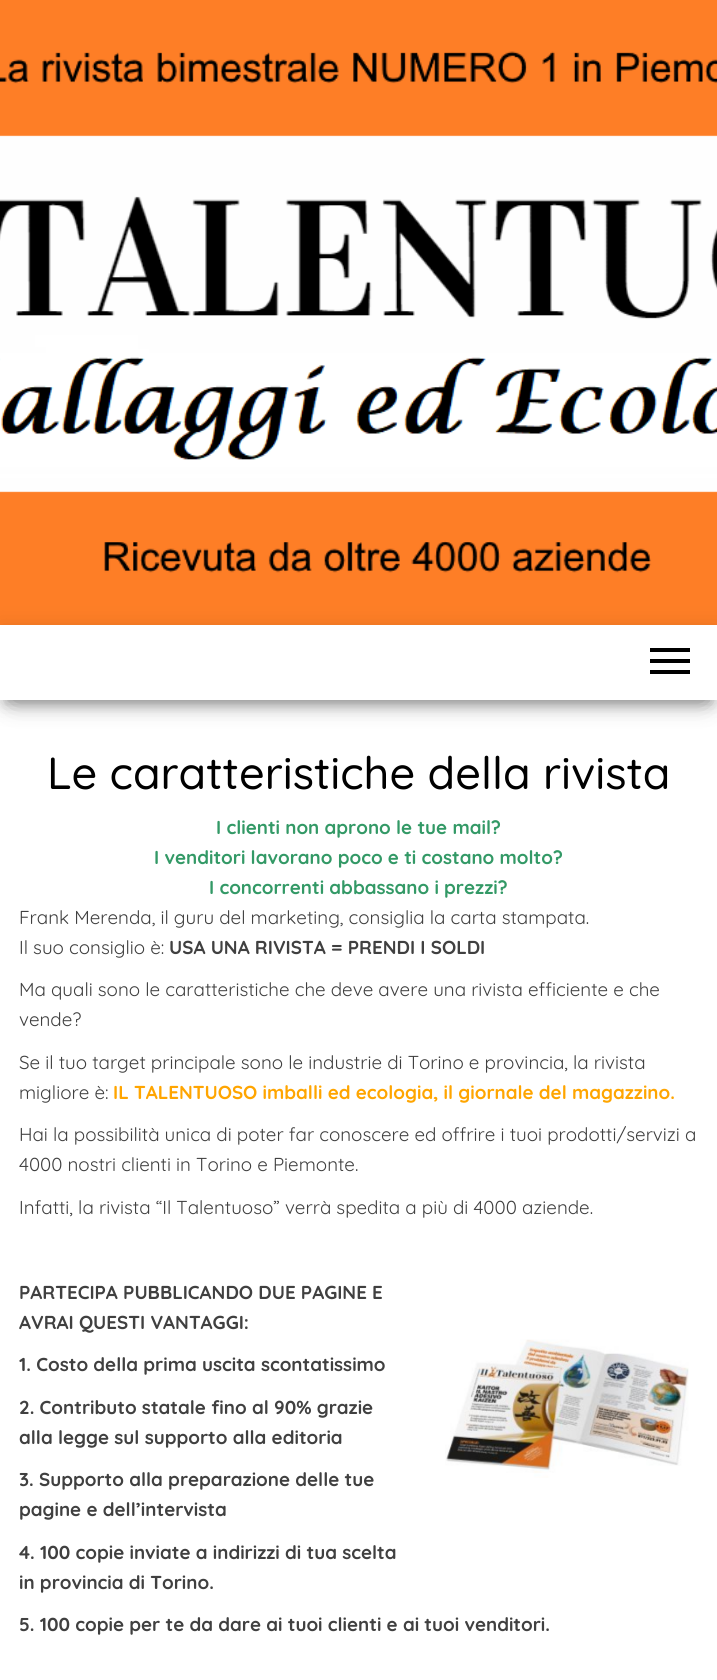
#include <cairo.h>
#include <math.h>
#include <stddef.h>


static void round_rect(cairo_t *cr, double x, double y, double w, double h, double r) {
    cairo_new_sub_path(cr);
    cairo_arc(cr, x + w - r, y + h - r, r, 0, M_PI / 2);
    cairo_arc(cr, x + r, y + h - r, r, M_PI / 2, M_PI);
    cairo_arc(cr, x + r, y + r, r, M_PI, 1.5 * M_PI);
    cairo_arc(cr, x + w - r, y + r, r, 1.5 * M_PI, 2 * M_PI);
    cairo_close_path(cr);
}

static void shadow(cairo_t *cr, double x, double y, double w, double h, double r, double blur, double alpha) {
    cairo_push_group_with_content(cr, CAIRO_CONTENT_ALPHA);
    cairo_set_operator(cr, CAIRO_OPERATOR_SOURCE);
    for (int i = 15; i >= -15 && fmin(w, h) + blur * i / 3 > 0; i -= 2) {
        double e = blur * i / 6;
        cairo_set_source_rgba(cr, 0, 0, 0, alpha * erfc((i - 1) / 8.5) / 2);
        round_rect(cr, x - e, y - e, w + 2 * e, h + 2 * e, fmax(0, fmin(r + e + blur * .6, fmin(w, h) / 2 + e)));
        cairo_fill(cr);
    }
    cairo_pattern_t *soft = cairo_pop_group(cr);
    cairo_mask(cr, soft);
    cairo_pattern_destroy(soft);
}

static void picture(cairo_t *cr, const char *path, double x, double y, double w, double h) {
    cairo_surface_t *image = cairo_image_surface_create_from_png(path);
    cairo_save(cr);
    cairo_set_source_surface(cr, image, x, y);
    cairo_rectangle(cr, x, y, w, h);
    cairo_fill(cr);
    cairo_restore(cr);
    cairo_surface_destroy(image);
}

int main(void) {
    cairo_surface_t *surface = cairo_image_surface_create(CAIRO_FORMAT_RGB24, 717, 1680);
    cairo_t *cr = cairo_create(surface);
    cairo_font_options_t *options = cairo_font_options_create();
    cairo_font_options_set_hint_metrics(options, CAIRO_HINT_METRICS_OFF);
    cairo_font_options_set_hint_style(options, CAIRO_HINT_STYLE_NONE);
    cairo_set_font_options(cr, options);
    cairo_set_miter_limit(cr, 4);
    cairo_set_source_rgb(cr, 1, 1, 1);
    cairo_paint(cr);
    picture(cr, "img1.png", 0, 0, 717, 625);
    cairo_set_source_rgb(cr, 0, 0, 0);
    shadow(cr, 6, 641, 705, 63, 0, 6, 0.2);
    shadow(cr, 0, 629, 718, 75, 0, 12.5, 0.12);
    shadow(cr, 15, 653, 688, 45, 0, 12.5, 0.42);
    cairo_set_source_rgb(cr, 1, 1, 1);
    cairo_rectangle(cr, 0, 625, 717, 75);
    cairo_fill(cr);
    cairo_set_source_rgb(cr, 0, 0, 0);
    cairo_rectangle(cr, 650, 648, 40, 4);
    cairo_fill(cr);
    cairo_rectangle(cr, 650, 659, 40, 4);
    cairo_fill(cr);
    cairo_rectangle(cr, 650, 670, 40, 4);
    cairo_fill(cr);
    cairo_select_font_face(cr, "Quicksand Medium", CAIRO_FONT_SLANT_NORMAL, CAIRO_FONT_WEIGHT_NORMAL);
    cairo_set_font_size(cr, 45);
    cairo_move_to(cr, 47, 789);
    cairo_show_text(cr, "Le caratteristiche della rivista");
    cairo_select_font_face(cr, "Quicksand", CAIRO_FONT_SLANT_NORMAL, CAIRO_FONT_WEIGHT_BOLD);
    cairo_set_font_size(cr, 18.75);
    cairo_set_source_rgb(cr, 0.2, 0.6, 0.4);
    cairo_move_to(cr, 216, 834);
    cairo_show_text(cr, "I clienti non aprono le tue mail?");
    cairo_move_to(cr, 154, 864);
    cairo_show_text(cr, "I venditori lavorano poco e ti costano molto?");
    cairo_move_to(cr, 209, 894);
    cairo_show_text(cr, "I concorrenti abbassano i prezzi?");
    cairo_select_font_face(cr, "Quicksand", CAIRO_FONT_SLANT_NORMAL, CAIRO_FONT_WEIGHT_NORMAL);
    cairo_set_source_rgb(cr, 0.251, 0.251, 0.251);
    cairo_move_to(cr, 19, 924);
    cairo_show_text(cr, "Frank Merenda, il guru del marketing, consiglia la carta stampata.");
    cairo_move_to(cr, 19, 954);
    cairo_show_text(cr, "Il suo consiglio è:");
    cairo_select_font_face(cr, "Quicksand", CAIRO_FONT_SLANT_NORMAL, CAIRO_FONT_WEIGHT_BOLD);
    cairo_move_to(cr, 169, 954);
    cairo_show_text(cr, "USA UNA RIVISTA = PRENDI I SOLDI");
    cairo_select_font_face(cr, "Quicksand", CAIRO_FONT_SLANT_NORMAL, CAIRO_FONT_WEIGHT_NORMAL);
    cairo_move_to(cr, 19, 996);
    cairo_show_text(cr, "Ma quali sono le caratteristiche che deve avere una rivista efficiente e che");
    cairo_move_to(cr, 19, 1026);
    cairo_show_text(cr, "vende?");
    cairo_move_to(cr, 19, 1069);
    cairo_show_text(cr, "Se il tuo target principale sono le industrie di Torino e provincia, la rivista");
    cairo_move_to(cr, 19, 1099);
    cairo_show_text(cr, "migliore è:");
    cairo_select_font_face(cr, "Quicksand", CAIRO_FONT_SLANT_NORMAL, CAIRO_FONT_WEIGHT_BOLD);
    cairo_set_source_rgb(cr, 1, 0.647, 0);
    cairo_move_to(cr, 113, 1099);
    cairo_show_text(cr, "IL TALENTUOSO imballi ed ecologia, il giornale del magazzino.");
    cairo_select_font_face(cr, "Quicksand", CAIRO_FONT_SLANT_NORMAL, CAIRO_FONT_WEIGHT_NORMAL);
    cairo_set_source_rgb(cr, 0.251, 0.251, 0.251);
    cairo_move_to(cr, 19, 1141);
    cairo_show_text(cr, "Hai la possibilità unica di poter far conoscere ed offrire i tuoi prodotti/servizi a");
    cairo_move_to(cr, 19, 1171);
    cairo_show_text(cr, "4000 nostri clienti in Torino e Piemonte.");
    cairo_move_to(cr, 19, 1214);
    cairo_show_text(cr, "Infatti, la rivista “Il Talentuoso” verrà spedita a più di 4000 aziende.");
    cairo_select_font_face(cr, "Quicksand", CAIRO_FONT_SLANT_NORMAL, CAIRO_FONT_WEIGHT_BOLD);
    cairo_move_to(cr, 19, 1299);
    cairo_show_text(cr, "PARTECIPA PUBBLICANDO DUE PAGINE E");
    cairo_move_to(cr, 19, 1329);
    cairo_show_text(cr, "AVRAI QUESTI VANTAGGI:");
    cairo_move_to(cr, 19, 1371);
    cairo_show_text(cr, "1. Costo della prima uscita scontatissimo");
    picture(cr, "img2.png", 445, 1339, 244, 139);
    cairo_move_to(cr, 19, 1414);
    cairo_show_text(cr, "2. Contributo statale fino al 90% grazie");
    cairo_move_to(cr, 19, 1444);
    cairo_show_text(cr, "alla legge sul supporto alla editoria");
    cairo_move_to(cr, 19, 1486);
    cairo_show_text(cr, "3. Supporto alla preparazione delle tue");
    cairo_move_to(cr, 19, 1516);
    cairo_show_text(cr, "pagine e dell’intervista");
    cairo_move_to(cr, 19, 1559);
    cairo_show_text(cr, "4. 100 copie inviate a indirizzi di tua scelta");
    cairo_move_to(cr, 19, 1589);
    cairo_show_text(cr, "in provincia di Torino.");
    cairo_move_to(cr, 19, 1631);
    cairo_show_text(cr, "5. 100 copie per te da dare ai tuoi clienti e ai tuoi venditori.");
    cairo_surface_write_to_png(surface, "page.png");
    cairo_font_options_destroy(options);
    cairo_destroy(cr);
    cairo_surface_destroy(surface);
    return 0;
}
